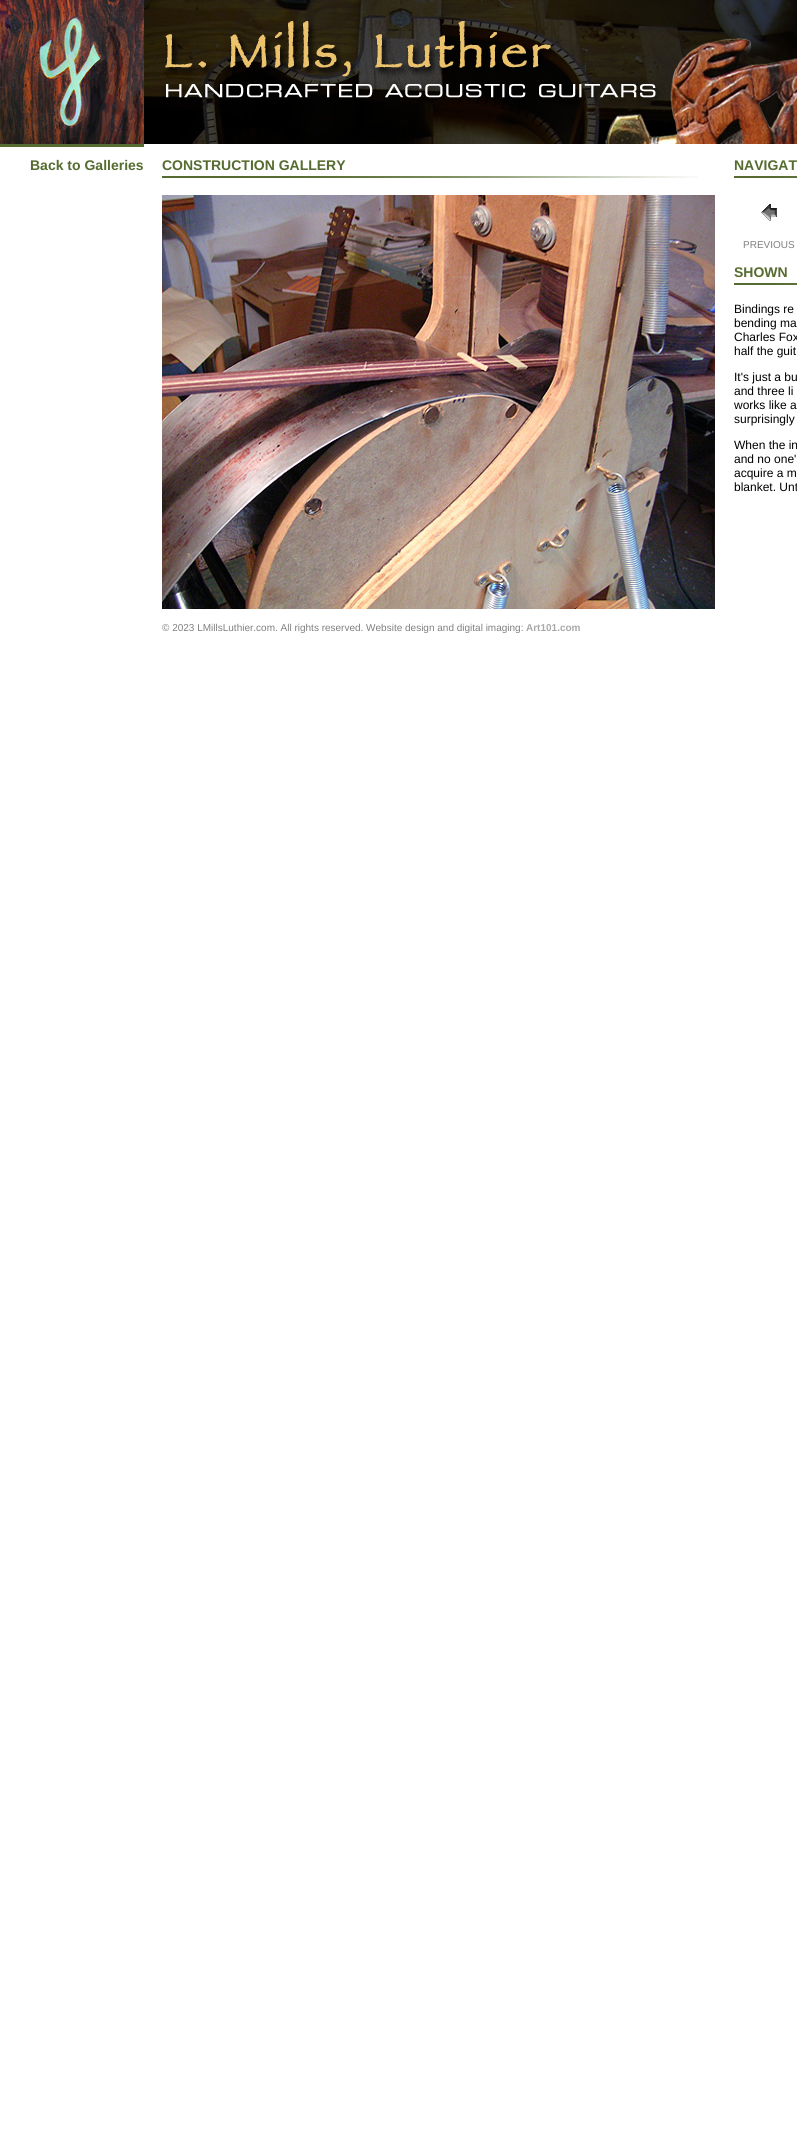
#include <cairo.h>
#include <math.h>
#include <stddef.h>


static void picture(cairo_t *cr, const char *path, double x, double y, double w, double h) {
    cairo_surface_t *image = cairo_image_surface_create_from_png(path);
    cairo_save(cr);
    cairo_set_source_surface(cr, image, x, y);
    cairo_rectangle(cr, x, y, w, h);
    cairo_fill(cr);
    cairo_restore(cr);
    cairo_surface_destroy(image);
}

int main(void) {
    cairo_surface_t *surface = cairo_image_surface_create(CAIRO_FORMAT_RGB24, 797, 2132);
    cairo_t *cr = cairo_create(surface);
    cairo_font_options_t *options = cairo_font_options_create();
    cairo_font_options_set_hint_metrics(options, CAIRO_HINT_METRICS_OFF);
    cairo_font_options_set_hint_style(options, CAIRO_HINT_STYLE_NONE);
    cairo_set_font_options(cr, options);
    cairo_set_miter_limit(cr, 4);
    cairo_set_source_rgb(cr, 1, 1, 1);
    cairo_paint(cr);
    picture(cr, "img1.png", 0, 0, 144, 144);
    cairo_set_source_rgb(cr, 0.333, 0.42, 0.184);
    cairo_rectangle(cr, 0, 144, 144, 3);
    cairo_fill(cr);
    picture(cr, "img2.png", 144, 0, 18, 144);
    picture(cr, "img3.png", 162, 0, 554, 144);
    picture(cr, "img4.png", 716, 0, 18, 144);
    picture(cr, "img5.png", 734, 0, 63, 144);
    cairo_select_font_face(cr, "Liberation Sans", CAIRO_FONT_SLANT_NORMAL, CAIRO_FONT_WEIGHT_BOLD);
    cairo_set_font_size(cr, 14);
    cairo_move_to(cr, 30, 170);
    cairo_show_text(cr, "Back to Galleries");
    cairo_move_to(cr, 162, 170);
    cairo_show_text(cr, "CONSTRUCTION GALLERY");
    picture(cr, "img6.png", 162, 176, 536, 2);
    picture(cr, "img7.png", 162, 195, 553, 414);
    cairo_move_to(cr, 734, 170);
    cairo_show_text(cr, "NAVIGAT");
    picture(cr, "img8.png", 734, 176, 63, 2);
    picture(cr, "img9.png", 761, 204, 16, 17);
    cairo_select_font_face(cr, "Liberation Sans", CAIRO_FONT_SLANT_NORMAL, CAIRO_FONT_WEIGHT_NORMAL);
    cairo_set_font_size(cr, 10);
    cairo_set_source_rgb(cr, 0.502, 0.502, 0.502);
    cairo_move_to(cr, 743, 248);
    cairo_show_text(cr, "PREVIOUS");
    cairo_select_font_face(cr, "Liberation Sans", CAIRO_FONT_SLANT_NORMAL, CAIRO_FONT_WEIGHT_BOLD);
    cairo_set_font_size(cr, 14);
    cairo_set_source_rgb(cr, 0.333, 0.42, 0.184);
    cairo_move_to(cr, 734, 277);
    cairo_show_text(cr, "SHOWN");
    picture(cr, "img8.png", 734, 283, 63, 2);
    cairo_select_font_face(cr, "Liberation Sans", CAIRO_FONT_SLANT_NORMAL, CAIRO_FONT_WEIGHT_NORMAL);
    cairo_set_font_size(cr, 12);
    cairo_set_source_rgb(cr, 0, 0, 0);
    cairo_move_to(cr, 734, 313);
    cairo_show_text(cr, "Bindings re");
    cairo_move_to(cr, 734, 327);
    cairo_show_text(cr, "bending ma");
    cairo_move_to(cr, 734, 341);
    cairo_show_text(cr, "Charles Fox");
    cairo_move_to(cr, 734, 355);
    cairo_show_text(cr, "half the guit");
    cairo_move_to(cr, 734, 381);
    cairo_show_text(cr, "It's just a bu");
    cairo_move_to(cr, 734, 395);
    cairo_show_text(cr, "and three li");
    cairo_move_to(cr, 734, 409);
    cairo_show_text(cr, "works like a");
    cairo_move_to(cr, 734, 423);
    cairo_show_text(cr, "surprisingly");
    cairo_move_to(cr, 734, 449);
    cairo_show_text(cr, "When the in");
    cairo_move_to(cr, 734, 463);
    cairo_show_text(cr, "and no one'");
    cairo_move_to(cr, 734, 477);
    cairo_show_text(cr, "acquire a m");
    cairo_move_to(cr, 734, 491);
    cairo_show_text(cr, "blanket. Unt");
    cairo_set_font_size(cr, 10);
    cairo_set_source_rgb(cr, 0.502, 0.502, 0.502);
    cairo_move_to(cr, 162, 631);
    cairo_show_text(cr, "© 2023 LMillsLuthier.com. All rights reserved. Website design and digital imaging:");
    cairo_select_font_face(cr, "Liberation Sans", CAIRO_FONT_SLANT_NORMAL, CAIRO_FONT_WEIGHT_BOLD);
    cairo_set_source_rgb(cr, 0.663, 0.663, 0.663);
    cairo_move_to(cr, 526, 631);
    cairo_show_text(cr, "Art101.com");
    cairo_surface_write_to_png(surface, "page.png");
    cairo_font_options_destroy(options);
    cairo_destroy(cr);
    cairo_surface_destroy(surface);
    return 0;
}
